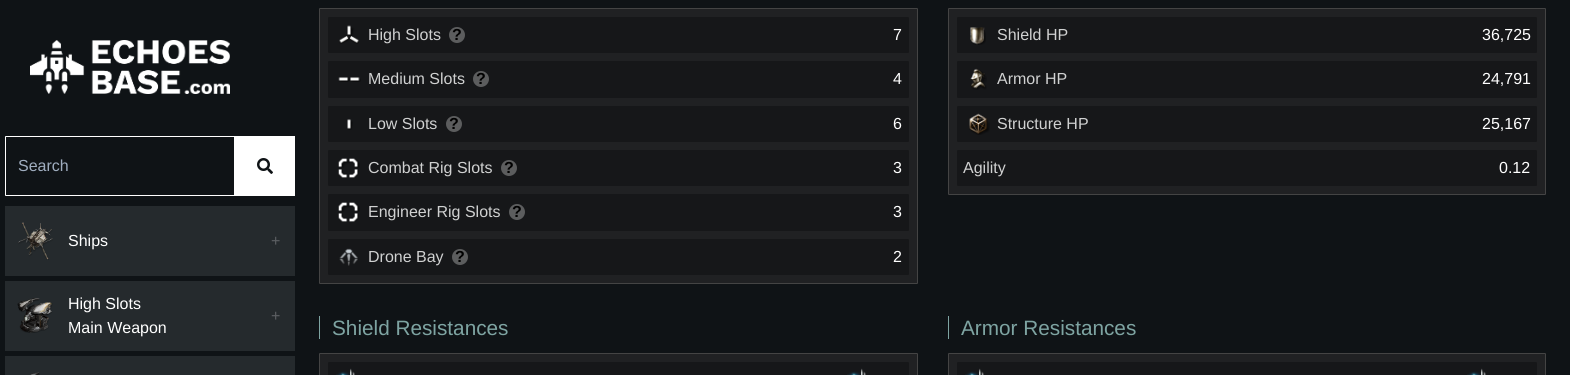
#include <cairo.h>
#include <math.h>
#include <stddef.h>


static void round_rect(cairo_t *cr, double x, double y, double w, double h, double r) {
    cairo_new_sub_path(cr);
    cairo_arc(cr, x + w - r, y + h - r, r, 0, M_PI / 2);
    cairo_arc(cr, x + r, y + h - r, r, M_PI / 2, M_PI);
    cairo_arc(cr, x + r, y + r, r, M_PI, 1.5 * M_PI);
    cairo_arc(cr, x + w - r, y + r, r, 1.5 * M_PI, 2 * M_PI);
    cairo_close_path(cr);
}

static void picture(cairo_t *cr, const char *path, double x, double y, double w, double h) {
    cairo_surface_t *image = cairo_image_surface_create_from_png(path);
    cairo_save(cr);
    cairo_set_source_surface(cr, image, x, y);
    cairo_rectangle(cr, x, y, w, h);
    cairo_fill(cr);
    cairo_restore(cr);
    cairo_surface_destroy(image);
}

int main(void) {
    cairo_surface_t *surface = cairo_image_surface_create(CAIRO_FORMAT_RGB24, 1570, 375);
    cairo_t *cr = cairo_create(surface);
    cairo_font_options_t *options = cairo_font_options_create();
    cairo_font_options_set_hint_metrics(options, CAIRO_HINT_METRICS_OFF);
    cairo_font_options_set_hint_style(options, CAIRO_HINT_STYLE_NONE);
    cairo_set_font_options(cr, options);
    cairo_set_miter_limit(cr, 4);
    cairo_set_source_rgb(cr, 0.059, 0.075, 0.086);
    cairo_paint(cr);
    picture(cr, "img1.png", 30, 40, 200, 54);
    cairo_new_path(cr);
    cairo_move_to(cr, 6, 136.5);
    cairo_line_to(cr, 234.5, 136.5);
    cairo_line_to(cr, 234.5, 195.5);
    cairo_line_to(cr, 6, 195.5);
    cairo_curve_to(cr, 5.5, 195.5, 5.5, 195.5, 5.5, 195);
    cairo_line_to(cr, 5.5, 137);
    cairo_curve_to(cr, 5.5, 136.5, 5.5, 136.5, 6, 136.5);
    cairo_close_path(cr);
    cairo_set_source_rgb(cr, 1, 1, 1);
    cairo_set_line_width(cr, 1);
    cairo_stroke(cr);
    cairo_select_font_face(cr, "Liberation Sans", CAIRO_FONT_SLANT_NORMAL, CAIRO_FONT_WEIGHT_NORMAL);
    cairo_set_font_size(cr, 16);
    cairo_set_source_rgb(cr, 0.627, 0.682, 0.753);
    cairo_move_to(cr, 18, 171);
    cairo_show_text(cr, "Search");
    cairo_set_source_rgb(cr, 1, 1, 1);
    cairo_rectangle(cr, 235, 137, 60, 59);
    cairo_fill(cr);
    cairo_rectangle(cr, 235, 136, 60, 1);
    cairo_fill(cr);
    picture(cr, "img2.png", 257, 158, 16, 16);
    cairo_set_source_rgb(cr, 0.145, 0.165, 0.176);
    cairo_rectangle(cr, 5, 206, 290, 70);
    cairo_fill(cr);
    picture(cr, "img3.png", 18, 222, 35, 38);
    cairo_set_source_rgb(cr, 1, 1, 1);
    cairo_move_to(cr, 68, 246);
    cairo_show_text(cr, "Ships");
    cairo_set_source_rgb(cr, 0.361, 0.373, 0.384);
    cairo_move_to(cr, 271, 246);
    cairo_show_text(cr, "+");
    cairo_set_source_rgb(cr, 0.145, 0.165, 0.176);
    cairo_rectangle(cr, 5, 281, 290, 70);
    cairo_fill(cr);
    picture(cr, "img4.png", 17, 298, 36, 35);
    cairo_set_source_rgb(cr, 1, 1, 1);
    cairo_move_to(cr, 68, 309);
    cairo_show_text(cr, "High Slots");
    cairo_move_to(cr, 68, 333);
    cairo_show_text(cr, "Main Weapon");
    cairo_set_source_rgb(cr, 0.361, 0.373, 0.384);
    cairo_move_to(cr, 271, 321);
    cairo_show_text(cr, "+");
    cairo_set_source_rgb(cr, 0.145, 0.165, 0.176);
    cairo_rectangle(cr, 5, 356, 290, 19);
    cairo_fill(cr);
    picture(cr, "img5.png", 30, 372, 10, 3);
    cairo_set_source_rgb(cr, 0.125, 0.129, 0.137);
    round_rect(cr, 319.5, 8.5, 598, 275, 0.5);
    cairo_fill_preserve(cr);
    cairo_set_source_rgb(cr, 0.267, 0.267, 0.267);
    cairo_stroke(cr);
    cairo_set_source_rgb(cr, 0.086, 0.09, 0.098);
    round_rect(cr, 328, 17, 581, 36, 1);
    cairo_fill(cr);
    picture(cr, "img6.png", 339, 25, 20, 19);
    cairo_set_source_rgb(cr, 0.816, 0.82, 0.82);
    cairo_move_to(cr, 368, 40);
    cairo_show_text(cr, "High Slots");
    cairo_set_source_rgb(cr, 0.361, 0.365, 0.369);
    cairo_new_path(cr);
    cairo_arc(cr, 457, 35, 8, 0, 2 * M_PI);
    cairo_fill(cr);
    cairo_select_font_face(cr, "Liberation Sans", CAIRO_FONT_SLANT_NORMAL, CAIRO_FONT_WEIGHT_BOLD);
    cairo_set_source_rgb(cr, 0, 0, 0);
    cairo_move_to(cr, 452, 40);
    cairo_show_text(cr, "?");
    cairo_select_font_face(cr, "Liberation Sans", CAIRO_FONT_SLANT_NORMAL, CAIRO_FONT_WEIGHT_NORMAL);
    cairo_set_source_rgb(cr, 1, 1, 1);
    cairo_move_to(cr, 893, 40);
    cairo_show_text(cr, "7");
    cairo_set_source_rgb(cr, 0.086, 0.09, 0.098);
    round_rect(cr, 328, 61, 581, 37, 1);
    cairo_fill(cr);
    picture(cr, "img7.png", 338, 77, 23, 5);
    cairo_set_source_rgb(cr, 0.816, 0.82, 0.82);
    cairo_move_to(cr, 368, 84);
    cairo_show_text(cr, "Medium Slots");
    cairo_set_source_rgb(cr, 0.361, 0.365, 0.369);
    cairo_new_path(cr);
    cairo_arc(cr, 481, 79, 8, 0, 2 * M_PI);
    cairo_fill(cr);
    cairo_select_font_face(cr, "Liberation Sans", CAIRO_FONT_SLANT_NORMAL, CAIRO_FONT_WEIGHT_BOLD);
    cairo_set_source_rgb(cr, 0, 0, 0);
    cairo_move_to(cr, 476, 84);
    cairo_show_text(cr, "?");
    cairo_select_font_face(cr, "Liberation Sans", CAIRO_FONT_SLANT_NORMAL, CAIRO_FONT_WEIGHT_NORMAL);
    cairo_set_source_rgb(cr, 1, 1, 1);
    cairo_move_to(cr, 893, 84);
    cairo_show_text(cr, "4");
    cairo_set_source_rgb(cr, 0.086, 0.09, 0.098);
    round_rect(cr, 328, 106, 581, 36, 1);
    cairo_fill(cr);
    picture(cr, "img8.png", 347, 119, 6, 11);
    cairo_set_source_rgb(cr, 0.816, 0.82, 0.82);
    cairo_move_to(cr, 368, 129);
    cairo_show_text(cr, "Low Slots");
    cairo_set_source_rgb(cr, 0.361, 0.365, 0.369);
    cairo_new_path(cr);
    cairo_arc(cr, 454, 124, 8, 0, 2 * M_PI);
    cairo_fill(cr);
    cairo_select_font_face(cr, "Liberation Sans", CAIRO_FONT_SLANT_NORMAL, CAIRO_FONT_WEIGHT_BOLD);
    cairo_set_source_rgb(cr, 0, 0, 0);
    cairo_move_to(cr, 449, 129);
    cairo_show_text(cr, "?");
    cairo_select_font_face(cr, "Liberation Sans", CAIRO_FONT_SLANT_NORMAL, CAIRO_FONT_WEIGHT_NORMAL);
    cairo_set_source_rgb(cr, 1, 1, 1);
    cairo_move_to(cr, 893, 129);
    cairo_show_text(cr, "6");
    cairo_set_source_rgb(cr, 0.086, 0.09, 0.098);
    round_rect(cr, 328, 150, 581, 36, 1);
    cairo_fill(cr);
    picture(cr, "img9.png", 338, 158, 22, 20);
    cairo_set_source_rgb(cr, 0.816, 0.82, 0.82);
    cairo_move_to(cr, 368, 173);
    cairo_show_text(cr, "Combat Rig Slots");
    cairo_set_source_rgb(cr, 0.361, 0.365, 0.369);
    cairo_new_path(cr);
    cairo_arc(cr, 509, 168, 8, 0, 2 * M_PI);
    cairo_fill(cr);
    cairo_select_font_face(cr, "Liberation Sans", CAIRO_FONT_SLANT_NORMAL, CAIRO_FONT_WEIGHT_BOLD);
    cairo_set_source_rgb(cr, 0, 0, 0);
    cairo_move_to(cr, 504, 173);
    cairo_show_text(cr, "?");
    cairo_select_font_face(cr, "Liberation Sans", CAIRO_FONT_SLANT_NORMAL, CAIRO_FONT_WEIGHT_NORMAL);
    cairo_set_source_rgb(cr, 1, 1, 1);
    cairo_move_to(cr, 893, 173);
    cairo_show_text(cr, "3");
    cairo_set_source_rgb(cr, 0.086, 0.09, 0.098);
    round_rect(cr, 328, 194, 581, 37, 1);
    cairo_fill(cr);
    picture(cr, "img9.png", 338, 202, 22, 20);
    cairo_set_source_rgb(cr, 0.816, 0.82, 0.82);
    cairo_move_to(cr, 368, 217);
    cairo_show_text(cr, "Engineer Rig Slots");
    cairo_set_source_rgb(cr, 0.361, 0.365, 0.369);
    cairo_new_path(cr);
    cairo_arc(cr, 517, 212, 8, 0, 2 * M_PI);
    cairo_fill(cr);
    cairo_select_font_face(cr, "Liberation Sans", CAIRO_FONT_SLANT_NORMAL, CAIRO_FONT_WEIGHT_BOLD);
    cairo_set_source_rgb(cr, 0, 0, 0);
    cairo_move_to(cr, 512, 217);
    cairo_show_text(cr, "?");
    cairo_select_font_face(cr, "Liberation Sans", CAIRO_FONT_SLANT_NORMAL, CAIRO_FONT_WEIGHT_NORMAL);
    cairo_set_source_rgb(cr, 1, 1, 1);
    cairo_move_to(cr, 893, 217);
    cairo_show_text(cr, "3");
    cairo_set_source_rgb(cr, 0.086, 0.09, 0.098);
    round_rect(cr, 328, 239, 581, 36, 1);
    cairo_fill(cr);
    picture(cr, "img10.png", 339, 248, 19, 18);
    cairo_set_source_rgb(cr, 0.816, 0.82, 0.82);
    cairo_move_to(cr, 368, 262);
    cairo_show_text(cr, "Drone Bay");
    cairo_set_source_rgb(cr, 0.361, 0.365, 0.369);
    cairo_new_path(cr);
    cairo_arc(cr, 460, 257, 8, 0, 2 * M_PI);
    cairo_fill(cr);
    cairo_select_font_face(cr, "Liberation Sans", CAIRO_FONT_SLANT_NORMAL, CAIRO_FONT_WEIGHT_BOLD);
    cairo_set_source_rgb(cr, 0, 0, 0);
    cairo_move_to(cr, 455, 262);
    cairo_show_text(cr, "?");
    cairo_select_font_face(cr, "Liberation Sans", CAIRO_FONT_SLANT_NORMAL, CAIRO_FONT_WEIGHT_NORMAL);
    cairo_set_source_rgb(cr, 1, 1, 1);
    cairo_move_to(cr, 893, 262);
    cairo_show_text(cr, "2");
    cairo_set_source_rgb(cr, 0.125, 0.129, 0.137);
    round_rect(cr, 948.5, 8.5, 597, 186, 0.5);
    cairo_fill_preserve(cr);
    cairo_set_source_rgb(cr, 0.267, 0.267, 0.267);
    cairo_stroke(cr);
    cairo_set_source_rgb(cr, 0.086, 0.09, 0.098);
    round_rect(cr, 957, 17, 580, 36, 1);
    cairo_fill(cr);
    picture(cr, "img11.png", 970, 27, 16, 18);
    cairo_set_source_rgb(cr, 0.816, 0.82, 0.82);
    cairo_move_to(cr, 997, 40);
    cairo_show_text(cr, "Shield HP");
    cairo_set_source_rgb(cr, 1, 1, 1);
    cairo_move_to(cr, 1482, 40);
    cairo_show_text(cr, "36,725");
    cairo_set_source_rgb(cr, 0.086, 0.09, 0.098);
    round_rect(cr, 957, 61, 580, 37, 1);
    cairo_fill(cr);
    picture(cr, "img12.png", 970, 68, 17, 22);
    cairo_set_source_rgb(cr, 0.816, 0.82, 0.82);
    cairo_move_to(cr, 997, 84);
    cairo_show_text(cr, "Armor HP");
    cairo_set_source_rgb(cr, 1, 1, 1);
    cairo_move_to(cr, 1482, 84);
    cairo_show_text(cr, "24,791");
    cairo_set_source_rgb(cr, 0.086, 0.09, 0.098);
    round_rect(cr, 957, 106, 580, 36, 1);
    cairo_fill(cr);
    picture(cr, "img13.png", 969, 113, 21, 22);
    cairo_set_source_rgb(cr, 0.816, 0.82, 0.82);
    cairo_move_to(cr, 997, 129);
    cairo_show_text(cr, "Structure HP");
    cairo_set_source_rgb(cr, 1, 1, 1);
    cairo_move_to(cr, 1482, 129);
    cairo_show_text(cr, "25,167");
    cairo_set_source_rgb(cr, 0.086, 0.09, 0.098);
    round_rect(cr, 957, 150, 580, 36, 1);
    cairo_fill(cr);
    cairo_set_source_rgb(cr, 0.816, 0.82, 0.82);
    cairo_move_to(cr, 963, 173);
    cairo_show_text(cr, "Agility");
    cairo_set_source_rgb(cr, 1, 1, 1);
    cairo_move_to(cr, 1499, 173);
    cairo_show_text(cr, "0.12");
    cairo_set_source_rgb(cr, 0.494, 0.643, 0.635);
    cairo_rectangle(cr, 319, 316, 1, 23);
    cairo_fill(cr);
    cairo_set_font_size(cr, 20.75);
    cairo_move_to(cr, 332, 335);
    cairo_show_text(cr, "Shield Resistances");
    cairo_set_source_rgb(cr, 0.125, 0.129, 0.137);
    round_rect(cr, 319.5, 353.5, 598, 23, 0.5);
    cairo_fill_preserve(cr);
    cairo_set_source_rgb(cr, 0.267, 0.267, 0.267);
    cairo_stroke(cr);
    cairo_set_source_rgb(cr, 0.086, 0.09, 0.098);
    round_rect(cr, 328, 362, 581, 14, 1);
    cairo_fill(cr);
    picture(cr, "img14.png", 336, 368, 19, 7);
    picture(cr, "img14.png", 847, 368, 19, 7);
    cairo_set_source_rgb(cr, 0.494, 0.643, 0.635);
    cairo_rectangle(cr, 948, 316, 1, 23);
    cairo_fill(cr);
    cairo_move_to(cr, 961, 335);
    cairo_show_text(cr, "Armor Resistances");
    cairo_set_source_rgb(cr, 0.125, 0.129, 0.137);
    round_rect(cr, 948.5, 353.5, 597, 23, 0.5);
    cairo_fill_preserve(cr);
    cairo_set_source_rgb(cr, 0.267, 0.267, 0.267);
    cairo_stroke(cr);
    cairo_set_source_rgb(cr, 0.086, 0.09, 0.098);
    round_rect(cr, 957, 362, 580, 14, 1);
    cairo_fill(cr);
    picture(cr, "img15.png", 965, 368, 19, 7);
    picture(cr, "img14.png", 1467, 368, 19, 7);
    cairo_surface_write_to_png(surface, "page.png");
    cairo_font_options_destroy(options);
    cairo_destroy(cr);
    cairo_surface_destroy(surface);
    return 0;
}
